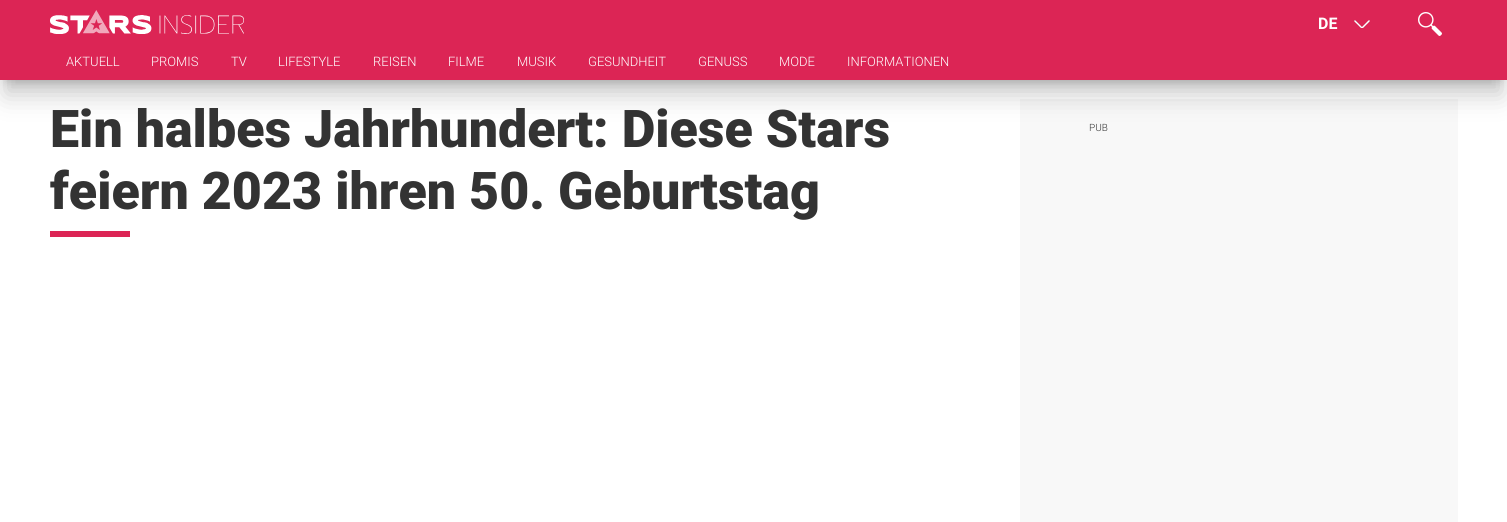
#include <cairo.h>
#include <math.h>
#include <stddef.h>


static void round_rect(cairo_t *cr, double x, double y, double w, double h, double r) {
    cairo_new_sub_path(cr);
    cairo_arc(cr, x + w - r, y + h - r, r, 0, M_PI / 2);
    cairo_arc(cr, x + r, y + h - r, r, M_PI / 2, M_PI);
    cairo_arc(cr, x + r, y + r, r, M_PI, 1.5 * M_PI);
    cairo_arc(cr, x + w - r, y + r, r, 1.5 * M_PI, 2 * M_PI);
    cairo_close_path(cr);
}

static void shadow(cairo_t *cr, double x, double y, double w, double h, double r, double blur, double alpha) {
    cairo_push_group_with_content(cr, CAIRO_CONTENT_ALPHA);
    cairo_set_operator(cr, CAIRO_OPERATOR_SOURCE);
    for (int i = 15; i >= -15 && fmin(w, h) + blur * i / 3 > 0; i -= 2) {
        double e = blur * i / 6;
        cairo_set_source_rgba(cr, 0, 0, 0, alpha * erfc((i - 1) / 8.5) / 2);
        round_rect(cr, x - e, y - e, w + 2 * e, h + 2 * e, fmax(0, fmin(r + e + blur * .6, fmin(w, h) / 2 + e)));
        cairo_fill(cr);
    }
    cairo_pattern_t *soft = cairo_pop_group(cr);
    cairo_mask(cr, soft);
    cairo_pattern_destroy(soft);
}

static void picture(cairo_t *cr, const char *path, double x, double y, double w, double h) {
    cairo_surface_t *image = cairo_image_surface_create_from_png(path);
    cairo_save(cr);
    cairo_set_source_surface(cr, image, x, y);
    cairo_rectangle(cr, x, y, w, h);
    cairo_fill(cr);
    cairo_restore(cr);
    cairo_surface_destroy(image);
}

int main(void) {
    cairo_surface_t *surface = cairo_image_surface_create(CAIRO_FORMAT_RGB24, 1507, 522);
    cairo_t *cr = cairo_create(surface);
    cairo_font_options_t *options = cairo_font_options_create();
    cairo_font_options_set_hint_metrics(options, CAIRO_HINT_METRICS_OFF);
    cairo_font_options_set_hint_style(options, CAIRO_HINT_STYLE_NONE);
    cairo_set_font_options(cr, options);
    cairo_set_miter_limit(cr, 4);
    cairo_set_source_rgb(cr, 1, 1, 1);
    cairo_paint(cr);
    cairo_set_source_rgb(cr, 0, 0, 0);
    shadow(cr, 6, 14, 1495, 68, 0, 5, 0.2);
    cairo_set_source_rgb(cr, 0.969, 0.969, 0.969);
    cairo_rectangle(cr, 1020, 99, 438, 423);
    cairo_fill(cr);
    cairo_set_source_rgb(cr, 0, 0, 0);
    shadow(cr, 5, 25, 1497, 70, 0, 12.5, 0.2);
    cairo_set_source_rgb(cr, 0.863, 0.145, 0.333);
    cairo_rectangle(cr, 0, 0, 1507, 80);
    cairo_fill(cr);
    picture(cr, "img1.png", 50, 10, 194, 24);
    cairo_select_font_face(cr, "Roboto", CAIRO_FONT_SLANT_NORMAL, CAIRO_FONT_WEIGHT_BOLD);
    cairo_set_font_size(cr, 16);
    cairo_set_source_rgb(cr, 1, 1, 1);
    cairo_move_to(cr, 1318, 29);
    cairo_show_text(cr, "DE");
    picture(cr, "img2.png", 1354, 20, 16, 8);
    picture(cr, "img3.png", 1418, 12, 24, 24);
    cairo_select_font_face(cr, "Roboto Light", CAIRO_FONT_SLANT_NORMAL, CAIRO_FONT_WEIGHT_NORMAL);
    cairo_set_font_size(cr, 13);
    cairo_move_to(cr, 66, 66);
    cairo_show_text(cr, "AKTUELL");
    cairo_move_to(cr, 151, 66);
    cairo_show_text(cr, "PROMIS");
    cairo_move_to(cr, 231, 66);
    cairo_show_text(cr, "TV");
    cairo_move_to(cr, 278, 66);
    cairo_show_text(cr, "LIFESTYLE");
    cairo_move_to(cr, 373, 66);
    cairo_show_text(cr, "REISEN");
    cairo_move_to(cr, 448, 66);
    cairo_show_text(cr, "FILME");
    cairo_move_to(cr, 517, 66);
    cairo_show_text(cr, "MUSIK");
    cairo_move_to(cr, 588, 66);
    cairo_show_text(cr, "GESUNDHEIT");
    cairo_move_to(cr, 698, 66);
    cairo_show_text(cr, "GENUSS");
    cairo_move_to(cr, 779, 66);
    cairo_show_text(cr, "MODE");
    cairo_move_to(cr, 847, 66);
    cairo_show_text(cr, "INFORMATIONEN");
    cairo_select_font_face(cr, "Roboto Black", CAIRO_FONT_SLANT_NORMAL, CAIRO_FONT_WEIGHT_NORMAL);
    cairo_set_font_size(cr, 52);
    cairo_set_source_rgb(cr, 0.2, 0.2, 0.2);
    cairo_move_to(cr, 50, 147);
    cairo_show_text(cr, "Ein halbes Jahrhundert: Diese Stars");
    cairo_move_to(cr, 50, 209);
    cairo_show_text(cr, "feiern 2023 ihren 50. Geburtstag");
    cairo_set_source_rgb(cr, 0.863, 0.145, 0.333);
    cairo_rectangle(cr, 50, 231, 80, 6);
    cairo_fill(cr);
    cairo_select_font_face(cr, "Roboto Light", CAIRO_FONT_SLANT_NORMAL, CAIRO_FONT_WEIGHT_NORMAL);
    cairo_set_font_size(cr, 10);
    cairo_set_source_rgb(cr, 0.2, 0.2, 0.2);
    cairo_move_to(cr, 1089, 131);
    cairo_show_text(cr, "PUB");
    cairo_surface_write_to_png(surface, "page.png");
    cairo_font_options_destroy(options);
    cairo_destroy(cr);
    cairo_surface_destroy(surface);
    return 0;
}
